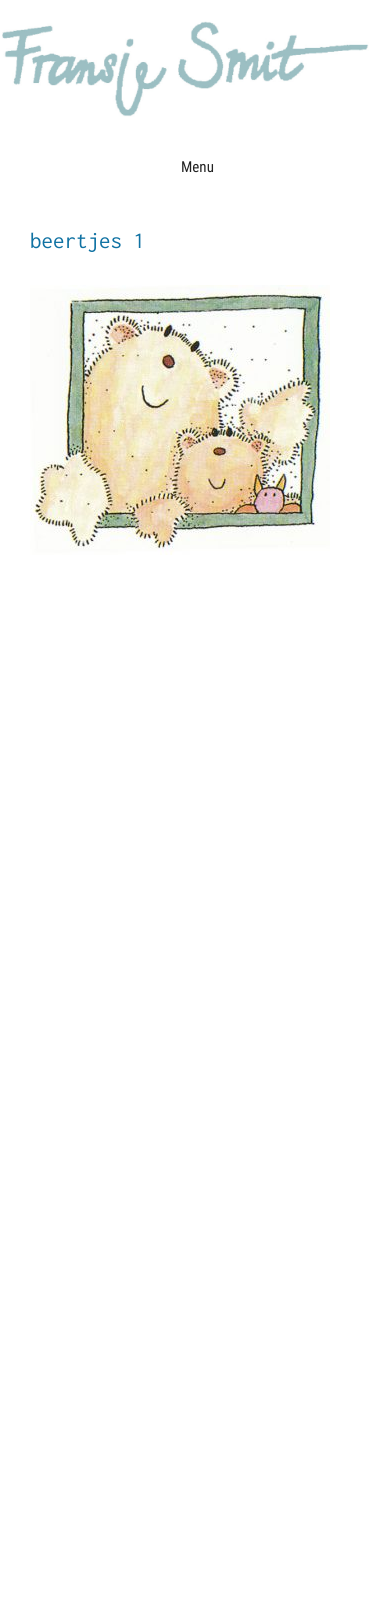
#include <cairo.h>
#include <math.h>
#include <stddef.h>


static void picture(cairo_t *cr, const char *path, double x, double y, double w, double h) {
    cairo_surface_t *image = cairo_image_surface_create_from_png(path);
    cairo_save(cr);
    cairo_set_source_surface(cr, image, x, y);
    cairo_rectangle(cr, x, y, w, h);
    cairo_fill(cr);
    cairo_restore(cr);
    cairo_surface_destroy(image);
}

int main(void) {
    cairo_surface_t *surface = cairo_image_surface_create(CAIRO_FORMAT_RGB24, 369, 1601);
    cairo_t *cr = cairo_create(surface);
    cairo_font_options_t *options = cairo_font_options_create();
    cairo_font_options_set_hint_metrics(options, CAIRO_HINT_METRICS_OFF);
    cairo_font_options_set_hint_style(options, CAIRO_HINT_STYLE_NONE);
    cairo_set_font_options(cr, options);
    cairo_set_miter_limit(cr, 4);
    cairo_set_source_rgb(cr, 1, 1, 1);
    cairo_paint(cr);
    picture(cr, "img1.png", 2, 21, 367, 96);
    cairo_select_font_face(cr, "Roboto Condensed", CAIRO_FONT_SLANT_NORMAL, CAIRO_FONT_WEIGHT_NORMAL);
    cairo_set_font_size(cr, 15);
    cairo_set_source_rgb(cr, 0.133, 0.133, 0.133);
    cairo_move_to(cr, 181, 172);
    cairo_show_text(cr, "Menu");
    cairo_select_font_face(cr, "Inconsolata", CAIRO_FONT_SLANT_NORMAL, CAIRO_FONT_WEIGHT_NORMAL);
    cairo_set_font_size(cr, 23);
    cairo_set_source_rgb(cr, 0.063, 0.447, 0.639);
    cairo_move_to(cr, 30, 248);
    cairo_show_text(cr, "beertjes 1");
    picture(cr, "img2.png", 30, 285, 300, 270);
    cairo_surface_write_to_png(surface, "page.png");
    cairo_font_options_destroy(options);
    cairo_destroy(cr);
    cairo_surface_destroy(surface);
    return 0;
}
